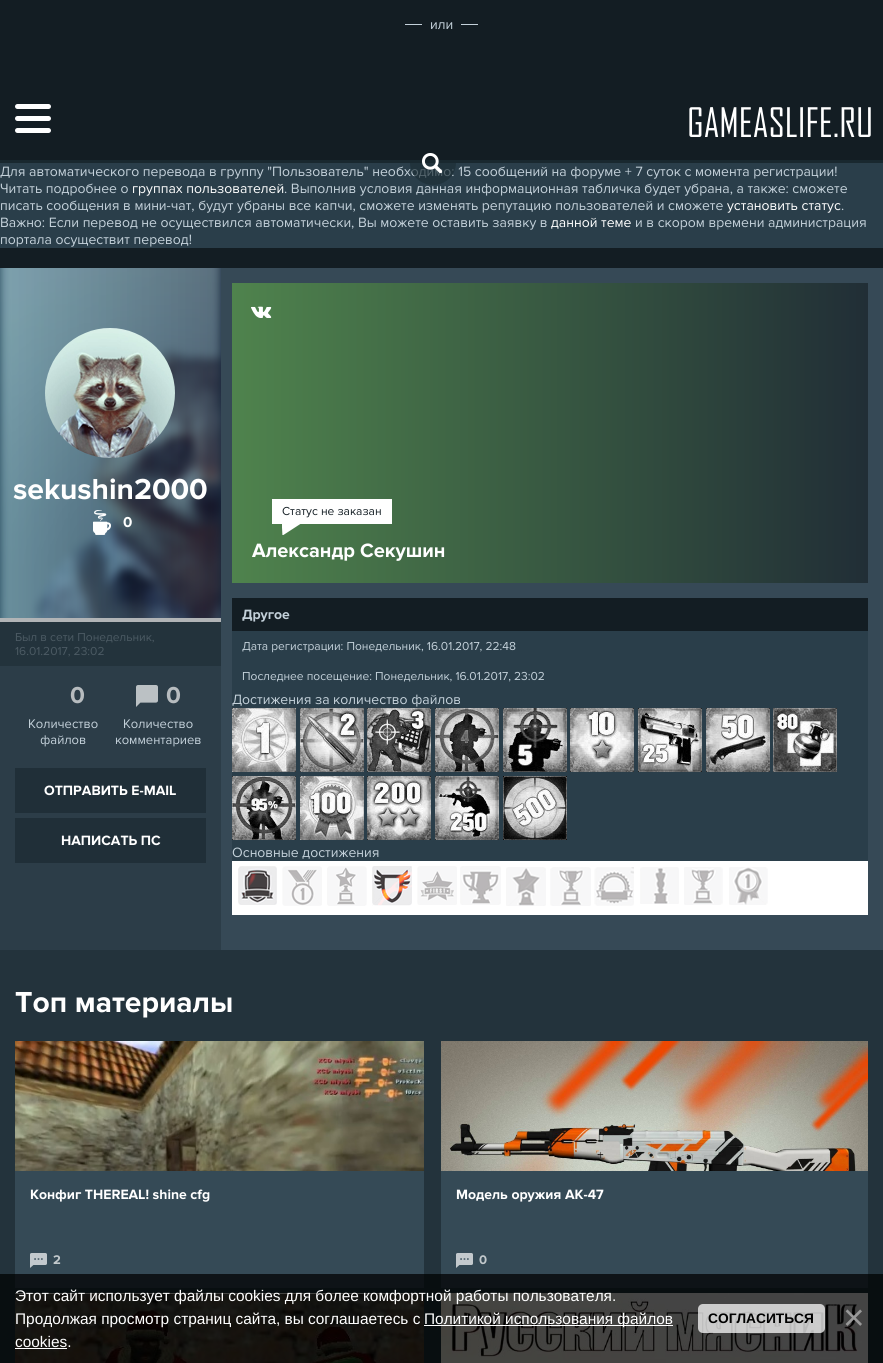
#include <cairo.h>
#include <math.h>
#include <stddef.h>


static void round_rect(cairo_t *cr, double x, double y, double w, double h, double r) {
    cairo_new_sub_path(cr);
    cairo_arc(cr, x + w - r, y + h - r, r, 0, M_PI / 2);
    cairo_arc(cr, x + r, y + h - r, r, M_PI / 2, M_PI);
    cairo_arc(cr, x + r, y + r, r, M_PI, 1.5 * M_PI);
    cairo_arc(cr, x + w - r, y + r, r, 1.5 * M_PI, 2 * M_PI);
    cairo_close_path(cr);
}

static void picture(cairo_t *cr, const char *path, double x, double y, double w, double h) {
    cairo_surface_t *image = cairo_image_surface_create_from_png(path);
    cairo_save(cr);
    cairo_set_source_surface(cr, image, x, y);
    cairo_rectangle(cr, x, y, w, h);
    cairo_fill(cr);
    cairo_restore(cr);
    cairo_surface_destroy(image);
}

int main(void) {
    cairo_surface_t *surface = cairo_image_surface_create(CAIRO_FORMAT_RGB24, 883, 1363);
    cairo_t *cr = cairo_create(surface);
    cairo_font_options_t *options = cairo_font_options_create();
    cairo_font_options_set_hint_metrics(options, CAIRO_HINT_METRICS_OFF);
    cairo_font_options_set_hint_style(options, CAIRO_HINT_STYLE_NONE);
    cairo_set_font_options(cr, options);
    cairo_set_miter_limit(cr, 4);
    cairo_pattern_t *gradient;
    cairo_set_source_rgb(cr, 0.078, 0.114, 0.137);
    cairo_paint(cr);
    cairo_set_source_rgb(cr, 0.769, 0.82, 0.855);
    cairo_rectangle(cr, 405, 24, 17, 1);
    cairo_fill(cr);
    cairo_select_font_face(cr, "Proxima Nova", CAIRO_FONT_SLANT_NORMAL, CAIRO_FONT_WEIGHT_NORMAL);
    cairo_set_font_size(cr, 14);
    cairo_move_to(cr, 430, 29);
    cairo_show_text(cr, "или");
    cairo_rectangle(cr, 461, 24, 17, 1);
    cairo_fill(cr);
    cairo_set_source_rgb(cr, 0.098, 0.157, 0.184);
    cairo_rectangle(cr, 0, 160, 883, 3);
    cairo_fill(cr);
    cairo_set_source_rgb(cr, 1, 1, 1);
    round_rect(cr, 15, 104, 36, 5, 2.5);
    cairo_fill(cr);
    round_rect(cr, 15, 116, 36, 5, 2.5);
    cairo_fill(cr);
    round_rect(cr, 15, 128, 36, 5, 2.5);
    cairo_fill(cr);
    cairo_select_font_face(cr, "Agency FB", CAIRO_FONT_SLANT_NORMAL, CAIRO_FONT_WEIGHT_NORMAL);
    cairo_set_font_size(cr, 39);
    cairo_move_to(cr, 687, 137);
    cairo_show_text(cr, "GAMEASLIFE.RU");
    cairo_set_source_rgb(cr, 0.165, 0.243, 0.29);
    cairo_rectangle(cr, 0, 163, 883, 85);
    cairo_fill(cr);
    cairo_select_font_face(cr, "Proxima Nova", CAIRO_FONT_SLANT_NORMAL, CAIRO_FONT_WEIGHT_NORMAL);
    cairo_set_font_size(cr, 14);
    cairo_set_source_rgb(cr, 0.769, 0.82, 0.855);
    cairo_move_to(cr, 0, 176);
    cairo_show_text(cr, "Для автоматического перевода в группу \"Пользователь\" необходимо: 15 сообщений на форуме + 7 суток с момента регистрации!");
    cairo_move_to(cr, 284, 193);
    cairo_show_text(cr, ". Выполнив условия данная информационная табличка будет убрана, а также: сможете");
    picture(cr, "img1.png", 410, 153, 46, 32);
    cairo_move_to(cr, 0, 193);
    cairo_show_text(cr, "Читать подробнее о");
    cairo_set_source_rgb(cr, 1, 1, 1);
    cairo_move_to(cr, 132, 193);
    cairo_show_text(cr, "группах пользователей");
    cairo_set_source_rgb(cr, 0.769, 0.82, 0.855);
    cairo_move_to(cr, 0, 210);
    cairo_show_text(cr, "писать сообщения в мини-чат, будут убраны все капчи, сможете изменять репутацию пользователей и сможете");
    cairo_set_source_rgb(cr, 1, 1, 1);
    cairo_move_to(cr, 727, 210);
    cairo_show_text(cr, "установить статус");
    cairo_set_source_rgb(cr, 0.769, 0.82, 0.855);
    cairo_move_to(cr, 841, 210);
    cairo_show_text(cr, ".");
    cairo_move_to(cr, 0, 227);
    cairo_show_text(cr, "Важно: Если перевод не осуществился автоматически, Вы можете оставить заявку в");
    cairo_set_source_rgb(cr, 1, 1, 1);
    cairo_move_to(cr, 551, 227);
    cairo_show_text(cr, "данной теме");
    cairo_set_source_rgb(cr, 0.769, 0.82, 0.855);
    cairo_move_to(cr, 635, 227);
    cairo_show_text(cr, "и в скором времени администрация");
    cairo_move_to(cr, 0, 244);
    cairo_show_text(cr, "портала осуществит перевод!");
    cairo_set_source_rgb(cr, 0.212, 0.286, 0.337);
    cairo_rectangle(cr, 221, 268, 662, 682);
    cairo_fill(cr);
    cairo_set_source_rgb(cr, 0.173, 0.239, 0.282);
    cairo_rectangle(cr, 0, 268, 221, 682);
    cairo_fill(cr);
    picture(cr, "img2.png", 0, 268, 221, 350);
    gradient = cairo_pattern_create_linear(0, 443, 221, 443);
    cairo_pattern_add_color_stop_rgba(gradient, 0, 0.078, 0.282, 0.408, 0.47);
    cairo_pattern_add_color_stop_rgba(gradient, 1, 0.012, 0.082, 0.2, 0.59);
    cairo_set_source(cr, gradient);
    cairo_pattern_destroy(gradient);
    cairo_rectangle(cr, 0, 268, 221, 350);
    cairo_fill(cr);
    picture(cr, "img3.png", 45, 328, 130, 130);
    cairo_select_font_face(cr, "Proxima Nova", CAIRO_FONT_SLANT_NORMAL, CAIRO_FONT_WEIGHT_BOLD);
    cairo_set_font_size(cr, 30);
    cairo_set_source_rgb(cr, 1, 1, 1);
    cairo_move_to(cr, 13, 499);
    cairo_show_text(cr, "sekushin2000");
    picture(cr, "img4.png", 93, 510, 18, 25);
    cairo_set_font_size(cr, 15);
    cairo_move_to(cr, 123, 527);
    cairo_show_text(cr, "0");
    cairo_set_source_rgb(cr, 0.694, 0.706, 0.714);
    cairo_rectangle(cr, 0, 618, 221, 4);
    cairo_fill(cr);
    cairo_set_source_rgb(cr, 0.137, 0.2, 0.235);
    cairo_rectangle(cr, 0, 622, 221, 44);
    cairo_fill(cr);
    cairo_select_font_face(cr, "Proxima Nova", CAIRO_FONT_SLANT_NORMAL, CAIRO_FONT_WEIGHT_NORMAL);
    cairo_set_font_size(cr, 12);
    cairo_set_source_rgb(cr, 0.294, 0.353, 0.388);
    cairo_move_to(cr, 15, 641);
    cairo_show_text(cr, "Был в сети Понедельник,");
    cairo_move_to(cr, 15, 655);
    cairo_show_text(cr, "16.01.2017, 23:02");
    cairo_select_font_face(cr, "Proxima Nova", CAIRO_FONT_SLANT_NORMAL, CAIRO_FONT_WEIGHT_BOLD);
    cairo_set_font_size(cr, 24);
    cairo_set_source_rgb(cr, 0.718, 0.737, 0.749);
    cairo_move_to(cr, 70, 703);
    cairo_show_text(cr, "0");
    cairo_select_font_face(cr, "Proxima Nova", CAIRO_FONT_SLANT_NORMAL, CAIRO_FONT_WEIGHT_NORMAL);
    cairo_set_font_size(cr, 13);
    cairo_set_source_rgb(cr, 0.769, 0.82, 0.855);
    cairo_move_to(cr, 28, 728);
    cairo_show_text(cr, "Количество");
    cairo_move_to(cr, 40, 744);
    cairo_show_text(cr, "файлов");
    picture(cr, "img5.png", 136, 685, 22, 22);
    cairo_select_font_face(cr, "Proxima Nova", CAIRO_FONT_SLANT_NORMAL, CAIRO_FONT_WEIGHT_BOLD);
    cairo_set_font_size(cr, 24);
    cairo_set_source_rgb(cr, 0.718, 0.737, 0.749);
    cairo_move_to(cr, 166, 703);
    cairo_show_text(cr, "0");
    cairo_select_font_face(cr, "Proxima Nova", CAIRO_FONT_SLANT_NORMAL, CAIRO_FONT_WEIGHT_NORMAL);
    cairo_set_font_size(cr, 13);
    cairo_set_source_rgb(cr, 0.769, 0.82, 0.855);
    cairo_move_to(cr, 123, 728);
    cairo_show_text(cr, "Количество");
    cairo_move_to(cr, 115, 744);
    cairo_show_text(cr, "комментариев");
    cairo_set_source_rgb(cr, 0.125, 0.184, 0.22);
    cairo_rectangle(cr, 15, 768, 191, 45);
    cairo_fill(cr);
    cairo_select_font_face(cr, "Proxima Nova", CAIRO_FONT_SLANT_NORMAL, CAIRO_FONT_WEIGHT_BOLD);
    cairo_set_font_size(cr, 14);
    cairo_set_source_rgb(cr, 1, 1, 1);
    cairo_move_to(cr, 44, 795);
    cairo_show_text(cr, "ОТПРАВИТЬ E-MAIL");
    cairo_set_source_rgb(cr, 0.125, 0.184, 0.22);
    cairo_rectangle(cr, 15, 818, 191, 45);
    cairo_fill(cr);
    cairo_set_source_rgb(cr, 1, 1, 1);
    cairo_move_to(cr, 61, 845);
    cairo_show_text(cr, "НАПИСАТЬ ПС");
    gradient = cairo_pattern_create_linear(232, 433, 868, 433);
    cairo_pattern_add_color_stop_rgba(gradient, 0, 0.31, 0.514, 0.302, 1);
    cairo_pattern_add_color_stop_rgba(gradient, 1, 0.129, 0.18, 0.212, 1);
    cairo_set_source(cr, gradient);
    cairo_pattern_destroy(gradient);
    cairo_rectangle(cr, 232, 283, 636, 300);
    cairo_fill(cr);
    picture(cr, "img6.png", 251, 306, 21, 12);
    cairo_set_source_rgb(cr, 1, 1, 1);
    cairo_rectangle(cr, 272, 499, 120, 25);
    cairo_fill(cr);
    cairo_select_font_face(cr, "Proxima Nova", CAIRO_FONT_SLANT_NORMAL, CAIRO_FONT_WEIGHT_NORMAL);
    cairo_set_font_size(cr, 12);
    cairo_set_source_rgb(cr, 0.078, 0.114, 0.137);
    cairo_move_to(cr, 282, 515);
    cairo_show_text(cr, "Статус не заказан");
    picture(cr, "img7.png", 282, 524, 19, 11);
    cairo_select_font_face(cr, "Proxima Nova", CAIRO_FONT_SLANT_NORMAL, CAIRO_FONT_WEIGHT_BOLD);
    cairo_set_font_size(cr, 20);
    cairo_set_source_rgb(cr, 1, 1, 1);
    cairo_move_to(cr, 252, 557);
    cairo_show_text(cr, "Александр Секушин");
    cairo_set_source_rgb(cr, 0.165, 0.243, 0.29);
    cairo_rectangle(cr, 232, 631, 636, 230);
    cairo_fill(cr);
    cairo_set_source_rgb(cr, 0.078, 0.114, 0.137);
    cairo_rectangle(cr, 232, 598, 636, 33);
    cairo_fill(cr);
    cairo_set_font_size(cr, 14);
    cairo_set_source_rgb(cr, 0.769, 0.82, 0.855);
    cairo_move_to(cr, 242, 619);
    cairo_show_text(cr, "Другое");
    cairo_select_font_face(cr, "Proxima Nova", CAIRO_FONT_SLANT_NORMAL, CAIRO_FONT_WEIGHT_NORMAL);
    cairo_set_font_size(cr, 12);
    cairo_move_to(cr, 242, 650);
    cairo_show_text(cr, "Дата регистрации: Понедельник, 16.01.2017, 22:48");
    cairo_move_to(cr, 242, 680);
    cairo_show_text(cr, "Последнее посещение: Понедельник, 16.01.2017, 23:02");
    cairo_set_font_size(cr, 14);
    cairo_move_to(cr, 232, 704);
    cairo_show_text(cr, "Достижения за количество файлов");
    picture(cr, "img8.png", 232, 708, 64, 64);
    picture(cr, "img9.png", 300, 708, 64, 64);
    picture(cr, "img10.png", 367, 708, 64, 64);
    picture(cr, "img11.png", 435, 708, 64, 64);
    picture(cr, "img12.png", 503, 708, 64, 64);
    picture(cr, "img13.png", 570, 708, 64, 64);
    picture(cr, "img14.png", 638, 708, 64, 64);
    picture(cr, "img15.png", 706, 708, 64, 64);
    picture(cr, "img16.png", 773, 708, 64, 64);
    picture(cr, "img17.png", 232, 776, 64, 64);
    picture(cr, "img18.png", 300, 776, 64, 64);
    picture(cr, "img19.png", 367, 776, 64, 64);
    picture(cr, "img20.png", 435, 776, 64, 64);
    picture(cr, "img21.png", 503, 776, 64, 64);
    cairo_move_to(cr, 232, 857);
    cairo_show_text(cr, "Основные достижения");
    cairo_set_source_rgb(cr, 1, 1, 1);
    cairo_rectangle(cr, 232, 861, 636, 54);
    cairo_fill(cr);
    picture(cr, "img22.png", 238, 866, 39, 39);
    picture(cr, "img23.png", 282, 866, 40, 40);
    picture(cr, "img24.png", 327, 866, 40, 40);
    picture(cr, "img25.png", 372, 866, 40, 40);
    picture(cr, "img26.png", 417, 866, 40, 39);
    picture(cr, "img27.png", 460, 866, 41, 39);
    picture(cr, "img28.png", 506, 867, 40, 39);
    picture(cr, "img29.png", 550, 867, 41, 39);
    picture(cr, "img30.png", 594, 867, 40, 39);
    picture(cr, "img31.png", 640, 867, 39, 37);
    picture(cr, "img32.png", 684, 867, 39, 38);
    picture(cr, "img33.png", 729, 867, 39, 38);
    cairo_set_source_rgb(cr, 0.137, 0.2, 0.235);
    cairo_rectangle(cr, 0, 950, 883, 324);
    cairo_fill(cr);
    cairo_set_source_rgb(cr, 0.035, 0.055, 0.063);
    cairo_rectangle(cr, 0, 1274, 883, 89);
    cairo_fill(cr);
    cairo_select_font_face(cr, "Proxima Nova", CAIRO_FONT_SLANT_NORMAL, CAIRO_FONT_WEIGHT_BOLD);
    cairo_set_font_size(cr, 30);
    cairo_set_source_rgb(cr, 1, 1, 1);
    cairo_move_to(cr, 15, 1012);
    cairo_show_text(cr, "Топ материалы");
    cairo_set_source_rgb(cr, 0.208, 0.29, 0.337);
    cairo_rectangle(cr, 15, 1171, 409, 103);
    cairo_fill(cr);
    cairo_set_source_rgb(cr, 0.055, 0.078, 0.09);
    cairo_rectangle(cr, 15, 1274, 409, 14);
    cairo_fill(cr);
    picture(cr, "img34.png", 15, 1041, 409, 130);
    cairo_set_font_size(cr, 14);
    cairo_set_source_rgb(cr, 1, 1, 1);
    cairo_move_to(cr, 30, 1199);
    cairo_show_text(cr, "Конфиг THEREAL! shine cfg");
    picture(cr, "img35.png", 30, 1253, 17, 15);
    cairo_set_font_size(cr, 13);
    cairo_set_source_rgb(cr, 0.761, 0.788, 0.8);
    cairo_move_to(cr, 53, 1264);
    cairo_show_text(cr, "2");
    cairo_set_source_rgb(cr, 0.208, 0.29, 0.337);
    cairo_rectangle(cr, 441, 1171, 427, 103);
    cairo_fill(cr);
    cairo_set_source_rgb(cr, 0.055, 0.078, 0.09);
    cairo_rectangle(cr, 441, 1274, 427, 14);
    cairo_fill(cr);
    picture(cr, "img36.png", 441, 1041, 427, 130);
    cairo_set_font_size(cr, 14);
    cairo_set_source_rgb(cr, 1, 1, 1);
    cairo_move_to(cr, 456, 1199);
    cairo_show_text(cr, "Модель оружия AK-47");
    picture(cr, "img35.png", 456, 1253, 17, 15);
    cairo_set_font_size(cr, 13);
    cairo_set_source_rgb(cr, 0.761, 0.788, 0.8);
    cairo_move_to(cr, 479, 1264);
    cairo_show_text(cr, "0");
    picture(cr, "img37.png", 15, 1293, 409, 70);
    picture(cr, "img38.png", 441, 1293, 427, 70);
    cairo_select_font_face(cr, "Liberation Sans", CAIRO_FONT_SLANT_NORMAL, CAIRO_FONT_WEIGHT_NORMAL);
    cairo_set_font_size(cr, 15.4);
    cairo_set_source_rgb(cr, 1, 1, 1);
    cairo_move_to(cr, 15, 1301);
    cairo_show_text(cr, "Этот сайт использует файлы cookies для более комфортной работы пользователя.");
    cairo_move_to(cr, 15, 1324);
    cairo_show_text(cr, "Продолжая просмотр страниц сайта, вы соглашаетесь с");
    cairo_rectangle(cr, 424, 1325, 249, 1);
    cairo_fill(cr);
    cairo_move_to(cr, 424, 1324);
    cairo_show_text(cr, "Политикой использования файлов");
    cairo_move_to(cr, 15, 1347);
    cairo_show_text(cr, "cookies.");
    cairo_rectangle(cr, 15, 1348, 52, 1);
    cairo_fill(cr);
    cairo_set_source_rgba(cr, 1, 1, 1, 0.73);
    round_rect(cr, 698, 1304, 127, 29, 5);
    cairo_fill(cr);
    cairo_select_font_face(cr, "Liberation Sans", CAIRO_FONT_SLANT_NORMAL, CAIRO_FONT_WEIGHT_BOLD);
    cairo_set_font_size(cr, 13.75);
    cairo_set_source_rgb(cr, 0, 0, 0);
    cairo_move_to(cr, 708, 1323);
    cairo_show_text(cr, "СОГЛАСИТЬСЯ");
    cairo_select_font_face(cr, "Liberation Sans", CAIRO_FONT_SLANT_NORMAL, CAIRO_FONT_WEIGHT_NORMAL);
    cairo_set_font_size(cr, 37);
    cairo_set_source_rgb(cr, 0.6, 0.6, 0.6);
    cairo_move_to(cr, 843, 1330);
    cairo_show_text(cr, "×");
    cairo_surface_write_to_png(surface, "page.png");
    cairo_font_options_destroy(options);
    cairo_destroy(cr);
    cairo_surface_destroy(surface);
    return 0;
}
